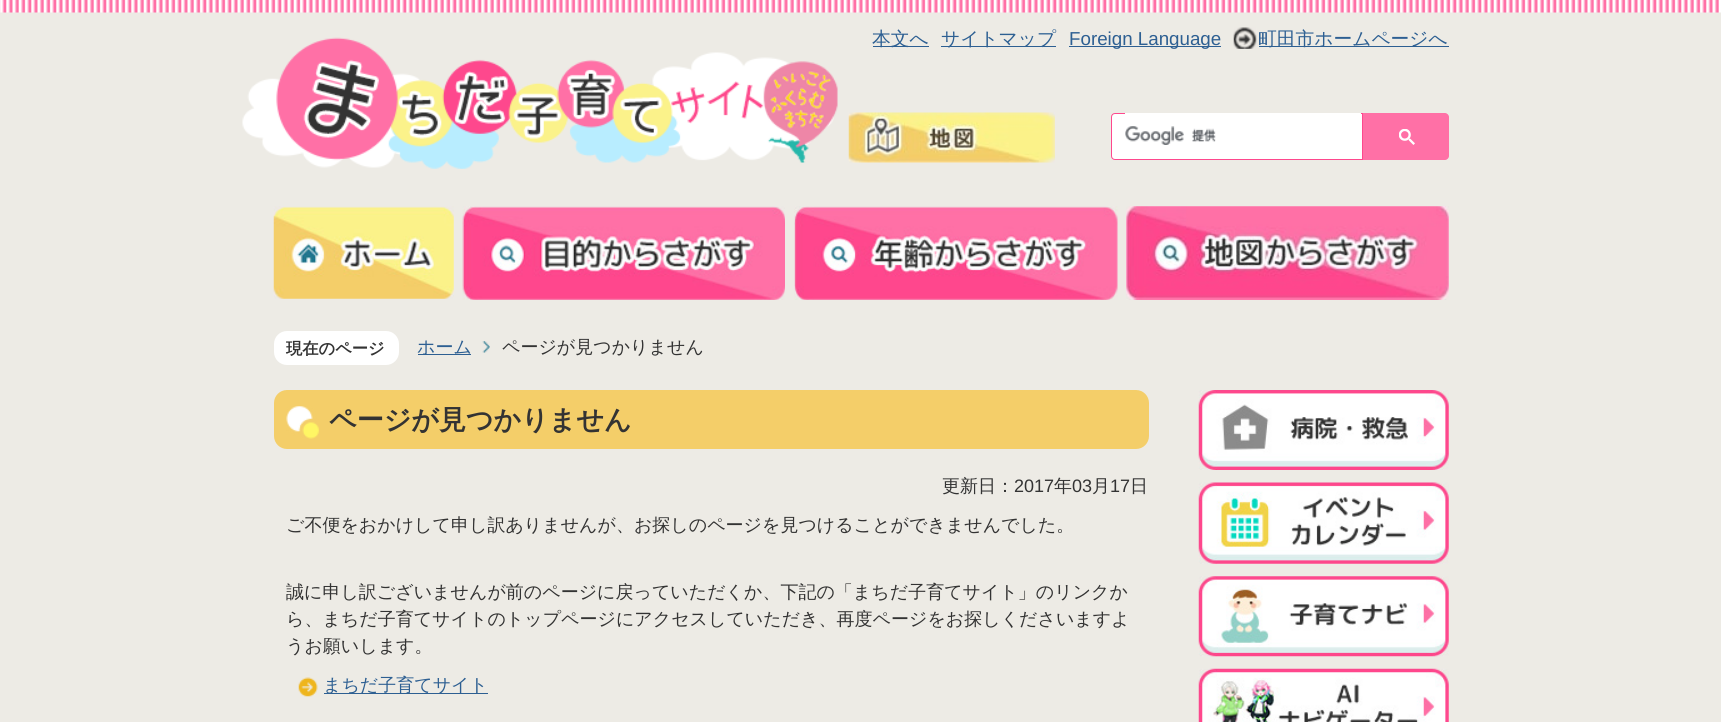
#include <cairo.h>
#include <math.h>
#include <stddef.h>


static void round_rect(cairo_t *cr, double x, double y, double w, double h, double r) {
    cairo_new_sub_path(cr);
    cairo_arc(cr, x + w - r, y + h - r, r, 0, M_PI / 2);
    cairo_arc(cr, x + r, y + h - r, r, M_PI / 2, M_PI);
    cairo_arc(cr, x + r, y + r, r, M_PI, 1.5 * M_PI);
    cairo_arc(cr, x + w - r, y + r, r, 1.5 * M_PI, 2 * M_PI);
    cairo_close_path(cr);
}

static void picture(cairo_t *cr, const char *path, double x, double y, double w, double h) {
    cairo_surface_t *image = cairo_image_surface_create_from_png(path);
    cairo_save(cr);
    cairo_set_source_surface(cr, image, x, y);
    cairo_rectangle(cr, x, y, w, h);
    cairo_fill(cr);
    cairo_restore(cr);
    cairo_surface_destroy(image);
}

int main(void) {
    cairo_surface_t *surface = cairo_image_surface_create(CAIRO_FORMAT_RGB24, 1721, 722);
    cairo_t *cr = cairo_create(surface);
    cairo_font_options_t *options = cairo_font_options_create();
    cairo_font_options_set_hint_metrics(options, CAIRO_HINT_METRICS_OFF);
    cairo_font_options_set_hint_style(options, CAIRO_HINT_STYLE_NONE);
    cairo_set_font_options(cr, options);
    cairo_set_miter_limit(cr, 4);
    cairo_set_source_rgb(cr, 0.929, 0.918, 0.898);
    cairo_paint(cr);
    picture(cr, "img1.png", 0, 0, 1721, 13);
    picture(cr, "img2.png", 242, 37, 596, 132);
    cairo_set_source_rgb(cr, 0.176, 0.373, 0.573);
    cairo_rectangle(cr, 873, 46, 56, 1);
    cairo_fill(cr);
    cairo_select_font_face(cr, "WenQuanYi Zen Hei Medium", CAIRO_FONT_SLANT_NORMAL, CAIRO_FONT_WEIGHT_NORMAL);
    cairo_set_font_size(cr, 18.75);
    cairo_move_to(cr, 872, 45);
    cairo_show_text(cr, "本文へ");
    cairo_rectangle(cr, 941, 46, 115, 1);
    cairo_fill(cr);
    cairo_move_to(cr, 941, 45);
    cairo_show_text(cr, "サイトマップ");
    cairo_rectangle(cr, 1069, 46, 152, 1);
    cairo_fill(cr);
    cairo_select_font_face(cr, "Liberation Sans", CAIRO_FONT_SLANT_NORMAL, CAIRO_FONT_WEIGHT_NORMAL);
    cairo_move_to(cr, 1069, 45);
    cairo_show_text(cr, "Foreign Language");
    picture(cr, "img3.png", 1233, 27, 24, 22);
    cairo_rectangle(cr, 1259, 46, 190, 1);
    cairo_fill(cr);
    cairo_select_font_face(cr, "WenQuanYi Zen Hei Medium", CAIRO_FONT_SLANT_NORMAL, CAIRO_FONT_WEIGHT_NORMAL);
    cairo_move_to(cr, 1258, 45);
    cairo_show_text(cr, "町田市ホームページへ");
    picture(cr, "img4.png", 848, 112, 207, 51);
    cairo_set_source_rgb(cr, 1, 1, 1);
    cairo_new_path(cr);
    cairo_move_to(cr, 1115, 113.5);
    cairo_line_to(cr, 1362.5, 113.5);
    cairo_line_to(cr, 1362.5, 159.5);
    cairo_line_to(cr, 1115, 159.5);
    cairo_curve_to(cr, 1113, 159.5, 1111.5, 158, 1111.5, 156);
    cairo_line_to(cr, 1111.5, 117);
    cairo_curve_to(cr, 1111.5, 115, 1113, 113.5, 1115, 113.5);
    cairo_close_path(cr);
    cairo_fill_preserve(cr);
    cairo_set_source_rgb(cr, 0.996, 0.282, 0.553);
    cairo_set_line_width(cr, 1);
    cairo_stroke(cr);
    cairo_set_source_rgb(cr, 1, 1, 1);
    cairo_rectangle(cr, 1125, 113, 236, 1);
    cairo_fill(cr);
    picture(cr, "img5.png", 1125, 126, 91, 19);
    cairo_set_source_rgb(cr, 1, 0.439, 0.651);
    cairo_new_path(cr);
    cairo_move_to(cr, 1363, 113);
    cairo_line_to(cr, 1445, 113);
    cairo_curve_to(cr, 1447, 113, 1449, 115, 1449, 117);
    cairo_line_to(cr, 1449, 156);
    cairo_curve_to(cr, 1449, 158, 1447, 160, 1445, 160);
    cairo_line_to(cr, 1363, 160);
    cairo_close_path(cr);
    cairo_fill(cr);
    picture(cr, "img6.png", 1399, 129, 16, 16);
    picture(cr, "img7.png", 273, 206, 181, 93);
    picture(cr, "img8.png", 462, 206, 323, 94);
    picture(cr, "img9.png", 794, 206, 324, 94);
    picture(cr, "img10.png", 1126, 206, 323, 94);
    cairo_set_source_rgb(cr, 1, 1, 1);
    round_rect(cr, 274, 331, 125, 34, 13);
    cairo_fill(cr);
    cairo_select_font_face(cr, "WenQuanYi Zen Hei", CAIRO_FONT_SLANT_NORMAL, CAIRO_FONT_WEIGHT_BOLD);
    cairo_set_font_size(cr, 16.25);
    cairo_set_source_rgb(cr, 0.2, 0.2, 0.2);
    cairo_move_to(cr, 286, 354);
    cairo_show_text(cr, "現在のページ");
    cairo_set_source_rgb(cr, 0.176, 0.373, 0.573);
    cairo_rectangle(cr, 418, 354, 53, 1);
    cairo_fill(cr);
    cairo_select_font_face(cr, "WenQuanYi Zen Hei Medium", CAIRO_FONT_SLANT_NORMAL, CAIRO_FONT_WEIGHT_NORMAL);
    cairo_set_font_size(cr, 18);
    cairo_move_to(cr, 417, 353);
    cairo_show_text(cr, "ホーム");
    picture(cr, "img11.png", 482, 341, 8, 12);
    cairo_set_source_rgb(cr, 0.2, 0.2, 0.2);
    cairo_move_to(cr, 502, 353);
    cairo_show_text(cr, "ページが見つかりません");
    cairo_set_source_rgb(cr, 0.957, 0.808, 0.412);
    round_rect(cr, 274, 390, 875, 59, 13);
    cairo_fill(cr);
    picture(cr, "img12.png", 286, 406, 33, 33);
    cairo_select_font_face(cr, "WenQuanYi Zen Hei", CAIRO_FONT_SLANT_NORMAL, CAIRO_FONT_WEIGHT_BOLD);
    cairo_set_font_size(cr, 27);
    cairo_set_source_rgb(cr, 0.2, 0.2, 0.2);
    cairo_move_to(cr, 329, 429);
    cairo_show_text(cr, "ページが見つかりません");
    cairo_select_font_face(cr, "WenQuanYi Zen Hei Medium", CAIRO_FONT_SLANT_NORMAL, CAIRO_FONT_WEIGHT_NORMAL);
    cairo_set_font_size(cr, 18);
    cairo_move_to(cr, 942, 492);
    cairo_show_text(cr, "更新日：");
    cairo_select_font_face(cr, "Liberation Sans", CAIRO_FONT_SLANT_NORMAL, CAIRO_FONT_WEIGHT_NORMAL);
    cairo_move_to(cr, 1014, 492);
    cairo_show_text(cr, "2017");
    cairo_select_font_face(cr, "WenQuanYi Zen Hei Medium", CAIRO_FONT_SLANT_NORMAL, CAIRO_FONT_WEIGHT_NORMAL);
    cairo_move_to(cr, 1054, 492);
    cairo_show_text(cr, "年");
    cairo_select_font_face(cr, "Liberation Sans", CAIRO_FONT_SLANT_NORMAL, CAIRO_FONT_WEIGHT_NORMAL);
    cairo_move_to(cr, 1072, 492);
    cairo_show_text(cr, "03");
    cairo_select_font_face(cr, "WenQuanYi Zen Hei Medium", CAIRO_FONT_SLANT_NORMAL, CAIRO_FONT_WEIGHT_NORMAL);
    cairo_move_to(cr, 1092, 492);
    cairo_show_text(cr, "月");
    cairo_select_font_face(cr, "Liberation Sans", CAIRO_FONT_SLANT_NORMAL, CAIRO_FONT_WEIGHT_NORMAL);
    cairo_move_to(cr, 1110, 492);
    cairo_show_text(cr, "17");
    cairo_select_font_face(cr, "WenQuanYi Zen Hei Medium", CAIRO_FONT_SLANT_NORMAL, CAIRO_FONT_WEIGHT_NORMAL);
    cairo_move_to(cr, 1130, 492);
    cairo_show_text(cr, "日");
    cairo_move_to(cr, 286, 531);
    cairo_show_text(cr, "ご不便をおかけして申し訳ありませんが、お探しのページを見つけることができませんでした。");
    cairo_move_to(cr, 286, 598);
    cairo_show_text(cr, "誠に申し訳ございませんが前のページに戻っていただくか、下記の「まちだ子育てサイト」のリンクか");
    cairo_move_to(cr, 286, 625);
    cairo_show_text(cr, "ら、まちだ子育てサイトのトップページにアクセスしていただき、再度ページをお探しくださいますよ");
    cairo_move_to(cr, 286, 652);
    cairo_show_text(cr, "うお願いします。");
    picture(cr, "img13.png", 298, 677, 20, 20);
    cairo_set_source_rgb(cr, 0.176, 0.373, 0.573);
    cairo_rectangle(cr, 324, 693, 164, 1);
    cairo_fill(cr);
    cairo_move_to(cr, 323, 691);
    cairo_show_text(cr, "まちだ子育てサイト");
    picture(cr, "img14.png", 1198, 390, 251, 80);
    picture(cr, "img15.png", 1198, 482, 251, 82);
    picture(cr, "img16.png", 1198, 576, 251, 81);
    picture(cr, "img17.png", 1198, 668, 251, 54);
    cairo_surface_write_to_png(surface, "page.png");
    cairo_font_options_destroy(options);
    cairo_destroy(cr);
    cairo_surface_destroy(surface);
    return 0;
}
